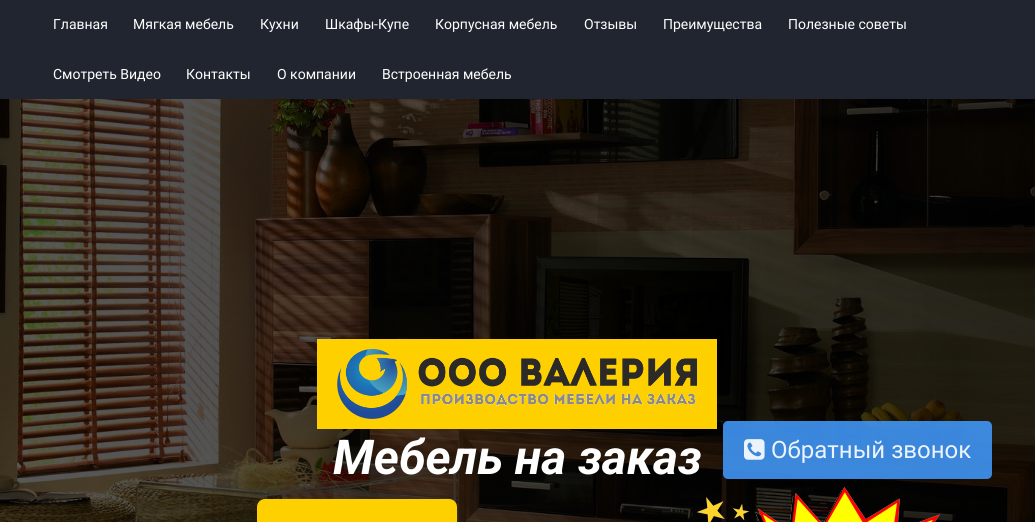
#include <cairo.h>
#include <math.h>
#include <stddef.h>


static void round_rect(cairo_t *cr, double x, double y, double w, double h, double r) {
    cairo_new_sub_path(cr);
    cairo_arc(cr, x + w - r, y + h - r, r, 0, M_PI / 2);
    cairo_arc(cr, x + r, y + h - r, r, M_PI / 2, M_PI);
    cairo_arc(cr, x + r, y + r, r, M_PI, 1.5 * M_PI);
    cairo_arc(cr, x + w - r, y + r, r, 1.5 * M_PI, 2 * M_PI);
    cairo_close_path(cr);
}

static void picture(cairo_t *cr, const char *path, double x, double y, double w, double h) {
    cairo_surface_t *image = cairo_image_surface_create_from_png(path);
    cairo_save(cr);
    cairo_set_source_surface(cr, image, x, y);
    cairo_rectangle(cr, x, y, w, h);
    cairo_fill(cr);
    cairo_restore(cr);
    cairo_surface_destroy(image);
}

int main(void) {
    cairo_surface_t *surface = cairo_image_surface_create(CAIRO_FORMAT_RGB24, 1035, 522);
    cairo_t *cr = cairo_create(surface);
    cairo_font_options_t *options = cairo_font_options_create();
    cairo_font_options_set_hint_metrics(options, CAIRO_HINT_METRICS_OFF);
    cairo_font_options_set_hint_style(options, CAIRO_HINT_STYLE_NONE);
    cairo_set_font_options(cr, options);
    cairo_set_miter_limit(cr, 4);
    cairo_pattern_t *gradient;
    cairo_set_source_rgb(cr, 1, 1, 1);
    cairo_paint(cr);
    picture(cr, "img1.png", 0, 99, 1035, 423);
    cairo_set_source_rgb(cr, 0.125, 0.145, 0.184);
    cairo_rectangle(cr, 0, 0, 1035, 99);
    cairo_fill(cr);
    cairo_select_font_face(cr, "Roboto", CAIRO_FONT_SLANT_NORMAL, CAIRO_FONT_WEIGHT_NORMAL);
    cairo_set_font_size(cr, 14);
    cairo_set_source_rgb(cr, 1, 1, 1);
    cairo_move_to(cr, 53, 29);
    cairo_show_text(cr, "Главная");
    cairo_move_to(cr, 133, 29);
    cairo_show_text(cr, "Мягкая мебель");
    cairo_move_to(cr, 260, 29);
    cairo_show_text(cr, "Кухни");
    cairo_move_to(cr, 325, 29);
    cairo_show_text(cr, "Шкафы");
    cairo_select_font_face(cr, "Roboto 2", CAIRO_FONT_SLANT_NORMAL, CAIRO_FONT_WEIGHT_NORMAL);
    cairo_move_to(cr, 374, 29);
    cairo_show_text(cr, "-");
    cairo_select_font_face(cr, "Roboto", CAIRO_FONT_SLANT_NORMAL, CAIRO_FONT_WEIGHT_NORMAL);
    cairo_move_to(cr, 378, 29);
    cairo_show_text(cr, "Купе");
    cairo_move_to(cr, 435, 29);
    cairo_show_text(cr, "Корпусная мебель");
    cairo_move_to(cr, 584, 29);
    cairo_show_text(cr, "Отзывы");
    cairo_move_to(cr, 663, 29);
    cairo_show_text(cr, "Преимущества");
    cairo_move_to(cr, 788, 29);
    cairo_show_text(cr, "Полезные советы");
    cairo_move_to(cr, 53, 79);
    cairo_show_text(cr, "Смотреть Видео");
    cairo_move_to(cr, 186, 79);
    cairo_show_text(cr, "Контакты");
    cairo_move_to(cr, 277, 79);
    cairo_show_text(cr, "О компании");
    cairo_move_to(cr, 382, 79);
    cairo_show_text(cr, "Встроенная мебель");
    gradient = cairo_pattern_create_linear(0, 506, 1035, 505);
    cairo_pattern_add_color_stop_rgba(gradient, 0, 0, 0, 0, 0.65);
    cairo_pattern_add_color_stop_rgba(gradient, 1, 0, 0, 0, 0.76);
    cairo_set_source(cr, gradient);
    cairo_pattern_destroy(gradient);
    cairo_rectangle(cr, 0, 99, 1035, 423);
    cairo_fill(cr);
    cairo_set_source_rgb(cr, 1, 0.816, 0);
    cairo_rectangle(cr, 317, 339, 400, 90);
    cairo_fill(cr);
    picture(cr, "img2.png", 337, 349, 360, 70);
    cairo_select_font_face(cr, "Roboto", CAIRO_FONT_SLANT_ITALIC, CAIRO_FONT_WEIGHT_BOLD);
    cairo_set_font_size(cr, 48);
    cairo_set_source_rgb(cr, 1, 1, 1);
    cairo_move_to(cr, 333, 474);
    cairo_show_text(cr, "Мебель на заказ");
    cairo_set_source_rgb(cr, 1, 0.816, 0);
    round_rect(cr, 257, 499, 200, 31, 8);
    cairo_fill(cr);
    picture(cr, "img3.png", 697, 487, 243, 35);
    cairo_set_source_rgba(cr, 0.251, 0.584, 0.957, 0.9);
    round_rect(cr, 723, 421, 269, 58, 5);
    cairo_fill(cr);
    picture(cr, "img4.png", 744, 439, 21, 21);
    cairo_select_font_face(cr, "Roboto", CAIRO_FONT_SLANT_NORMAL, CAIRO_FONT_WEIGHT_NORMAL);
    cairo_set_font_size(cr, 24);
    cairo_set_source_rgb(cr, 0.922, 0.953, 0.984);
    cairo_move_to(cr, 771, 458);
    cairo_show_text(cr, "Обратный звонок");
    cairo_surface_write_to_png(surface, "page.png");
    cairo_font_options_destroy(options);
    cairo_destroy(cr);
    cairo_surface_destroy(surface);
    return 0;
}
